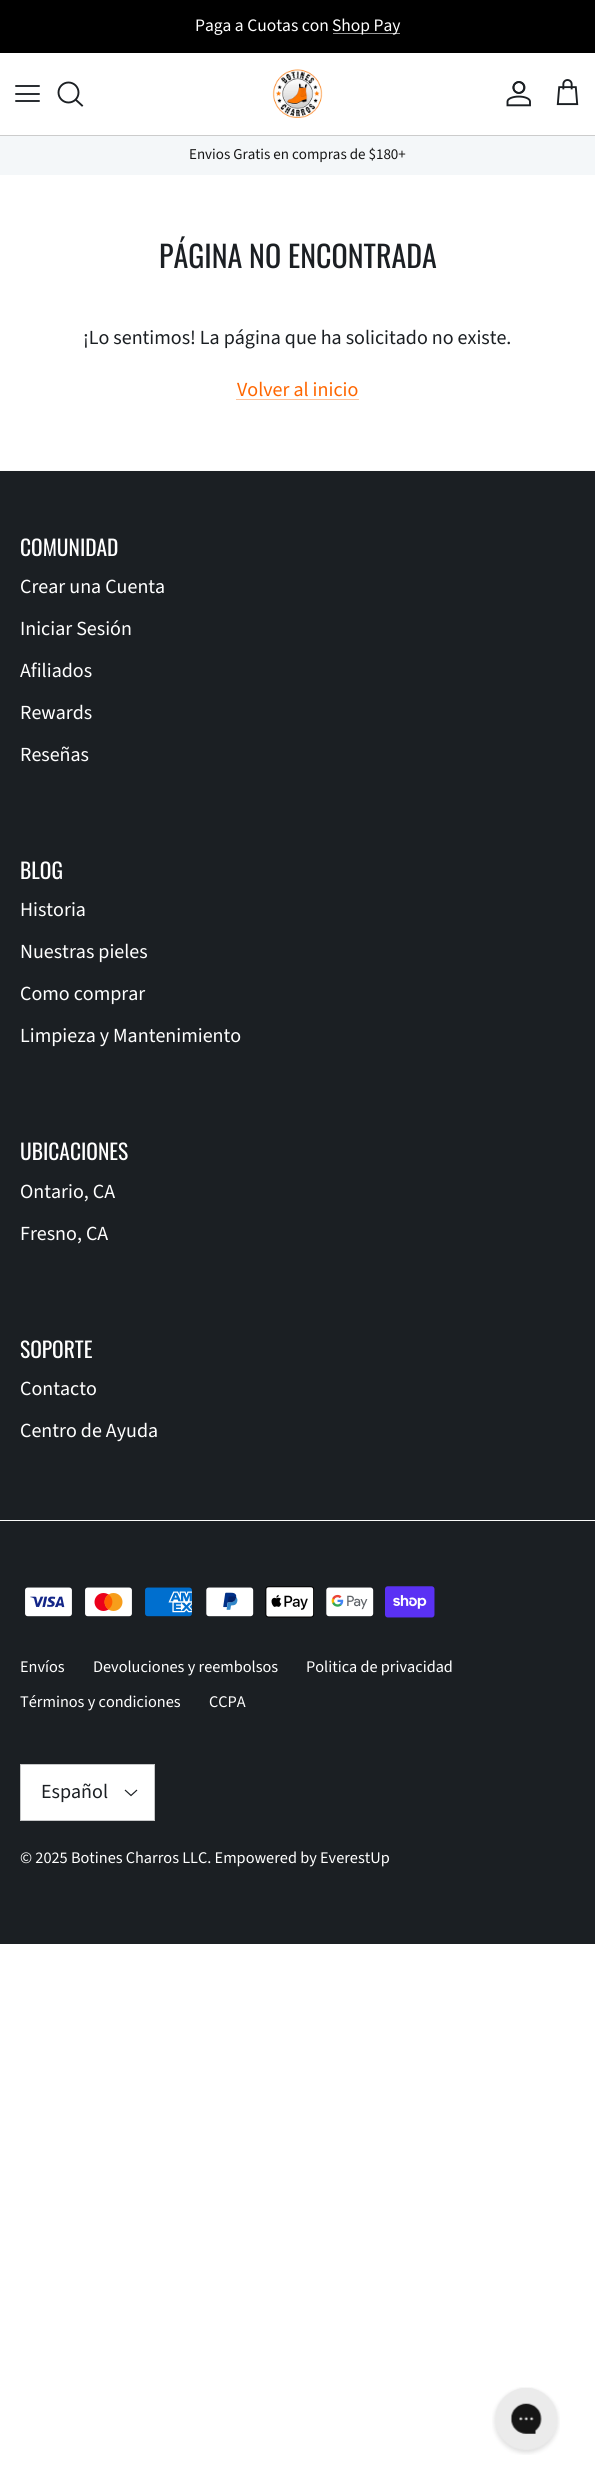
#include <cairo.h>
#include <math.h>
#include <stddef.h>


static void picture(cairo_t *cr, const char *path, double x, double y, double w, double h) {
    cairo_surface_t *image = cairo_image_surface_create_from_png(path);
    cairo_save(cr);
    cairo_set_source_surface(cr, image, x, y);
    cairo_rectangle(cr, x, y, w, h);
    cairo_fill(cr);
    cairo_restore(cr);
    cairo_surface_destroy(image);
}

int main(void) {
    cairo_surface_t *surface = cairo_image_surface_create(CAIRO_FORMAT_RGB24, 595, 2483);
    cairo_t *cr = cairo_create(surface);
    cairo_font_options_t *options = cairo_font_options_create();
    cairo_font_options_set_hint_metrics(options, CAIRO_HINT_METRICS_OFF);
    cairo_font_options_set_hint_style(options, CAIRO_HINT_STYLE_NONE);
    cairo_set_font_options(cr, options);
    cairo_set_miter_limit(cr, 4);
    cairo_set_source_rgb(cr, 1, 1, 1);
    cairo_paint(cr);
    cairo_set_source_rgb(cr, 0, 0, 0);
    cairo_rectangle(cr, 0, 0, 595, 53);
    cairo_fill(cr);
    cairo_select_font_face(cr, "Source Sans Pro", CAIRO_FONT_SLANT_NORMAL, CAIRO_FONT_WEIGHT_NORMAL);
    cairo_set_font_size(cr, 17.5);
    cairo_set_source_rgb(cr, 1, 1, 1);
    cairo_move_to(cr, 195, 31);
    cairo_show_text(cr, "Paga a Cuotas con");
    cairo_set_source_rgb(cr, 0.6, 0.6, 0.6);
    cairo_rectangle(cr, 333, 33, 67, 1);
    cairo_fill(cr);
    cairo_set_source_rgb(cr, 1, 1, 1);
    cairo_move_to(cr, 332, 31);
    cairo_show_text(cr, "Shop Pay");
    cairo_set_source_rgb(cr, 0.8, 0.8, 0.8);
    cairo_rectangle(cr, 0, 135, 595, 1);
    cairo_fill(cr);
    cairo_new_path(cr);
    cairo_move_to(cr, 16, 94);
    cairo_line_to(cr, 39, 94);
    cairo_move_to(cr, 16, 86);
    cairo_line_to(cr, 39, 86);
    cairo_move_to(cr, 16, 101);
    cairo_line_to(cr, 39, 101);
    cairo_set_source_rgb(cr, 0.106, 0.122, 0.137);
    cairo_set_line_width(cr, 1.9);
    cairo_set_line_cap(cr, CAIRO_LINE_CAP_ROUND);
    cairo_set_line_join(cr, CAIRO_LINE_JOIN_ROUND);
    cairo_stroke(cr);
    cairo_arc(cr, 68.5, 92.5, 10, 0, 2 * M_PI);
    cairo_set_line_cap(cr, CAIRO_LINE_CAP_BUTT);
    cairo_set_line_join(cr, CAIRO_LINE_JOIN_MITER);
    cairo_stroke(cr);
    cairo_new_path(cr);
    cairo_move_to(cr, 76, 100);
    cairo_line_to(cr, 82, 105.5);
    cairo_set_line_cap(cr, CAIRO_LINE_CAP_SQUARE);
    cairo_stroke(cr);
    picture(cr, "img1.png", 272, 69, 51, 49);
    picture(cr, "img2.png", 506, 81, 25, 26);
    picture(cr, "img3.png", 556, 79, 23, 27);
    cairo_set_source_rgb(cr, 0.957, 0.965, 0.973);
    cairo_rectangle(cr, 0, 136, 595, 39);
    cairo_fill(cr);
    cairo_set_font_size(cr, 15);
    cairo_set_source_rgb(cr, 0.09, 0.09, 0.09);
    cairo_move_to(cr, 189, 159);
    cairo_show_text(cr, "Envios Gratis en compras de $180+");
    cairo_select_font_face(cr, "Oswald", CAIRO_FONT_SLANT_NORMAL, CAIRO_FONT_WEIGHT_NORMAL);
    cairo_set_font_size(cr, 30);
    cairo_set_source_rgb(cr, 0.106, 0.122, 0.137);
    cairo_move_to(cr, 159, 268);
    cairo_show_text(cr, "PÁGINA NO ENCONTRADA");
    cairo_select_font_face(cr, "Source Sans Pro", CAIRO_FONT_SLANT_NORMAL, CAIRO_FONT_WEIGHT_NORMAL);
    cairo_set_font_size(cr, 20);
    cairo_move_to(cr, 83, 344);
    cairo_show_text(cr, "¡Lo sentimos! La página que ha solicitado no existe.");
    cairo_set_source_rgb(cr, 1, 0.4, 0);
    cairo_move_to(cr, 237, 396);
    cairo_show_text(cr, "Volver al inicio");
    cairo_set_source_rgb(cr, 1, 0.761, 0.6);
    cairo_rectangle(cr, 236, 399, 123, 1);
    cairo_fill(cr);
    cairo_set_source_rgb(cr, 0.106, 0.122, 0.137);
    cairo_rectangle(cr, 0, 471, 595, 1473);
    cairo_fill(cr);
    cairo_set_source_rgb(cr, 0.98, 0.98, 0.98);
    cairo_rectangle(cr, 0, 470, 595, 1);
    cairo_fill(cr);
    cairo_select_font_face(cr, "Oswald", CAIRO_FONT_SLANT_NORMAL, CAIRO_FONT_WEIGHT_NORMAL);
    cairo_set_font_size(cr, 21.5);
    cairo_set_source_rgb(cr, 1, 1, 1);
    cairo_move_to(cr, 20, 556);
    cairo_show_text(cr, "COMUNIDAD");
    cairo_select_font_face(cr, "Source Sans Pro", CAIRO_FONT_SLANT_NORMAL, CAIRO_FONT_WEIGHT_NORMAL);
    cairo_set_font_size(cr, 20);
    cairo_move_to(cr, 20, 593);
    cairo_show_text(cr, "Crear una Cuenta");
    cairo_move_to(cr, 20, 635);
    cairo_show_text(cr, "Iniciar Sesión");
    cairo_move_to(cr, 20, 677);
    cairo_show_text(cr, "Afiliados");
    cairo_move_to(cr, 20, 719);
    cairo_show_text(cr, "Rewards");
    cairo_move_to(cr, 20, 761);
    cairo_show_text(cr, "Reseñas");
    cairo_select_font_face(cr, "Oswald", CAIRO_FONT_SLANT_NORMAL, CAIRO_FONT_WEIGHT_NORMAL);
    cairo_set_font_size(cr, 21.5);
    cairo_move_to(cr, 20, 879);
    cairo_show_text(cr, "BLOG");
    cairo_select_font_face(cr, "Source Sans Pro", CAIRO_FONT_SLANT_NORMAL, CAIRO_FONT_WEIGHT_NORMAL);
    cairo_set_font_size(cr, 20);
    cairo_move_to(cr, 20, 916);
    cairo_show_text(cr, "Historia");
    cairo_move_to(cr, 20, 958);
    cairo_show_text(cr, "Nuestras pieles");
    cairo_move_to(cr, 20, 1000);
    cairo_show_text(cr, "Como comprar");
    cairo_move_to(cr, 20, 1042);
    cairo_show_text(cr, "Limpieza y Mantenimiento");
    cairo_select_font_face(cr, "Oswald", CAIRO_FONT_SLANT_NORMAL, CAIRO_FONT_WEIGHT_NORMAL);
    cairo_set_font_size(cr, 21.5);
    cairo_move_to(cr, 20, 1160);
    cairo_show_text(cr, "UBICACIONES");
    cairo_select_font_face(cr, "Source Sans Pro", CAIRO_FONT_SLANT_NORMAL, CAIRO_FONT_WEIGHT_NORMAL);
    cairo_set_font_size(cr, 20);
    cairo_move_to(cr, 20, 1198);
    cairo_show_text(cr, "Ontario, CA");
    cairo_move_to(cr, 20, 1240);
    cairo_show_text(cr, "Fresno, CA");
    cairo_select_font_face(cr, "Oswald", CAIRO_FONT_SLANT_NORMAL, CAIRO_FONT_WEIGHT_NORMAL);
    cairo_set_font_size(cr, 21.5);
    cairo_move_to(cr, 20, 1358);
    cairo_show_text(cr, "SOPORTE");
    cairo_select_font_face(cr, "Source Sans Pro", CAIRO_FONT_SLANT_NORMAL, CAIRO_FONT_WEIGHT_NORMAL);
    cairo_set_font_size(cr, 20);
    cairo_move_to(cr, 20, 1395);
    cairo_show_text(cr, "Contacto");
    cairo_move_to(cr, 20, 1437);
    cairo_show_text(cr, "Centro de Ayuda");
    cairo_set_source_rgb(cr, 0.98, 0.98, 0.98);
    cairo_rectangle(cr, 0, 1520, 595, 1);
    cairo_fill(cr);
    picture(cr, "img4.png", 25, 1587, 47, 30);
    picture(cr, "img5.png", 85, 1587, 47, 30);
    picture(cr, "img6.png", 145, 1587, 47, 30);
    picture(cr, "img7.png", 206, 1587, 48, 30);
    picture(cr, "img8.png", 265, 1586, 49, 32);
    picture(cr, "img9.png", 326, 1587, 48, 30);
    picture(cr, "img10.png", 385, 1586, 50, 32);
    cairo_set_font_size(cr, 16.25);
    cairo_set_source_rgb(cr, 1, 1, 1);
    cairo_move_to(cr, 20, 1672);
    cairo_show_text(cr, "Envíos");
    cairo_move_to(cr, 93, 1672);
    cairo_show_text(cr, "Devoluciones y reembolsos");
    cairo_move_to(cr, 306, 1672);
    cairo_show_text(cr, "Politica de privacidad");
    cairo_move_to(cr, 20, 1707);
    cairo_show_text(cr, "Términos y condiciones");
    cairo_move_to(cr, 209, 1707);
    cairo_show_text(cr, "CCPA");
    cairo_rectangle(cr, 20.5, 1764.5, 134, 56);
    cairo_fill_preserve(cr);
    cairo_set_source_rgb(cr, 0.776, 0.78, 0.784);
    cairo_set_line_width(cr, 1);
    cairo_set_line_cap(cr, CAIRO_LINE_CAP_BUTT);
    cairo_stroke(cr);
    cairo_set_font_size(cr, 20);
    cairo_set_source_rgb(cr, 0.106, 0.122, 0.137);
    cairo_move_to(cr, 41, 1798);
    cairo_show_text(cr, "Español");
    cairo_new_path(cr);
    cairo_move_to(cr, 137, 1790);
    cairo_line_to(cr, 131, 1795.5);
    cairo_line_to(cr, 125, 1790);
    cairo_set_line_width(cr, 1.2);
    cairo_stroke(cr);
    cairo_set_font_size(cr, 16.25);
    cairo_set_source_rgb(cr, 1, 1, 1);
    cairo_move_to(cr, 20, 1863);
    cairo_show_text(cr, "© 2025 Botines Charros LLC. Empowered by EverestUp");
    picture(cr, "img11.png", 492, 2387, 68, 68);
    cairo_surface_write_to_png(surface, "page.png");
    cairo_font_options_destroy(options);
    cairo_destroy(cr);
    cairo_surface_destroy(surface);
    return 0;
}
